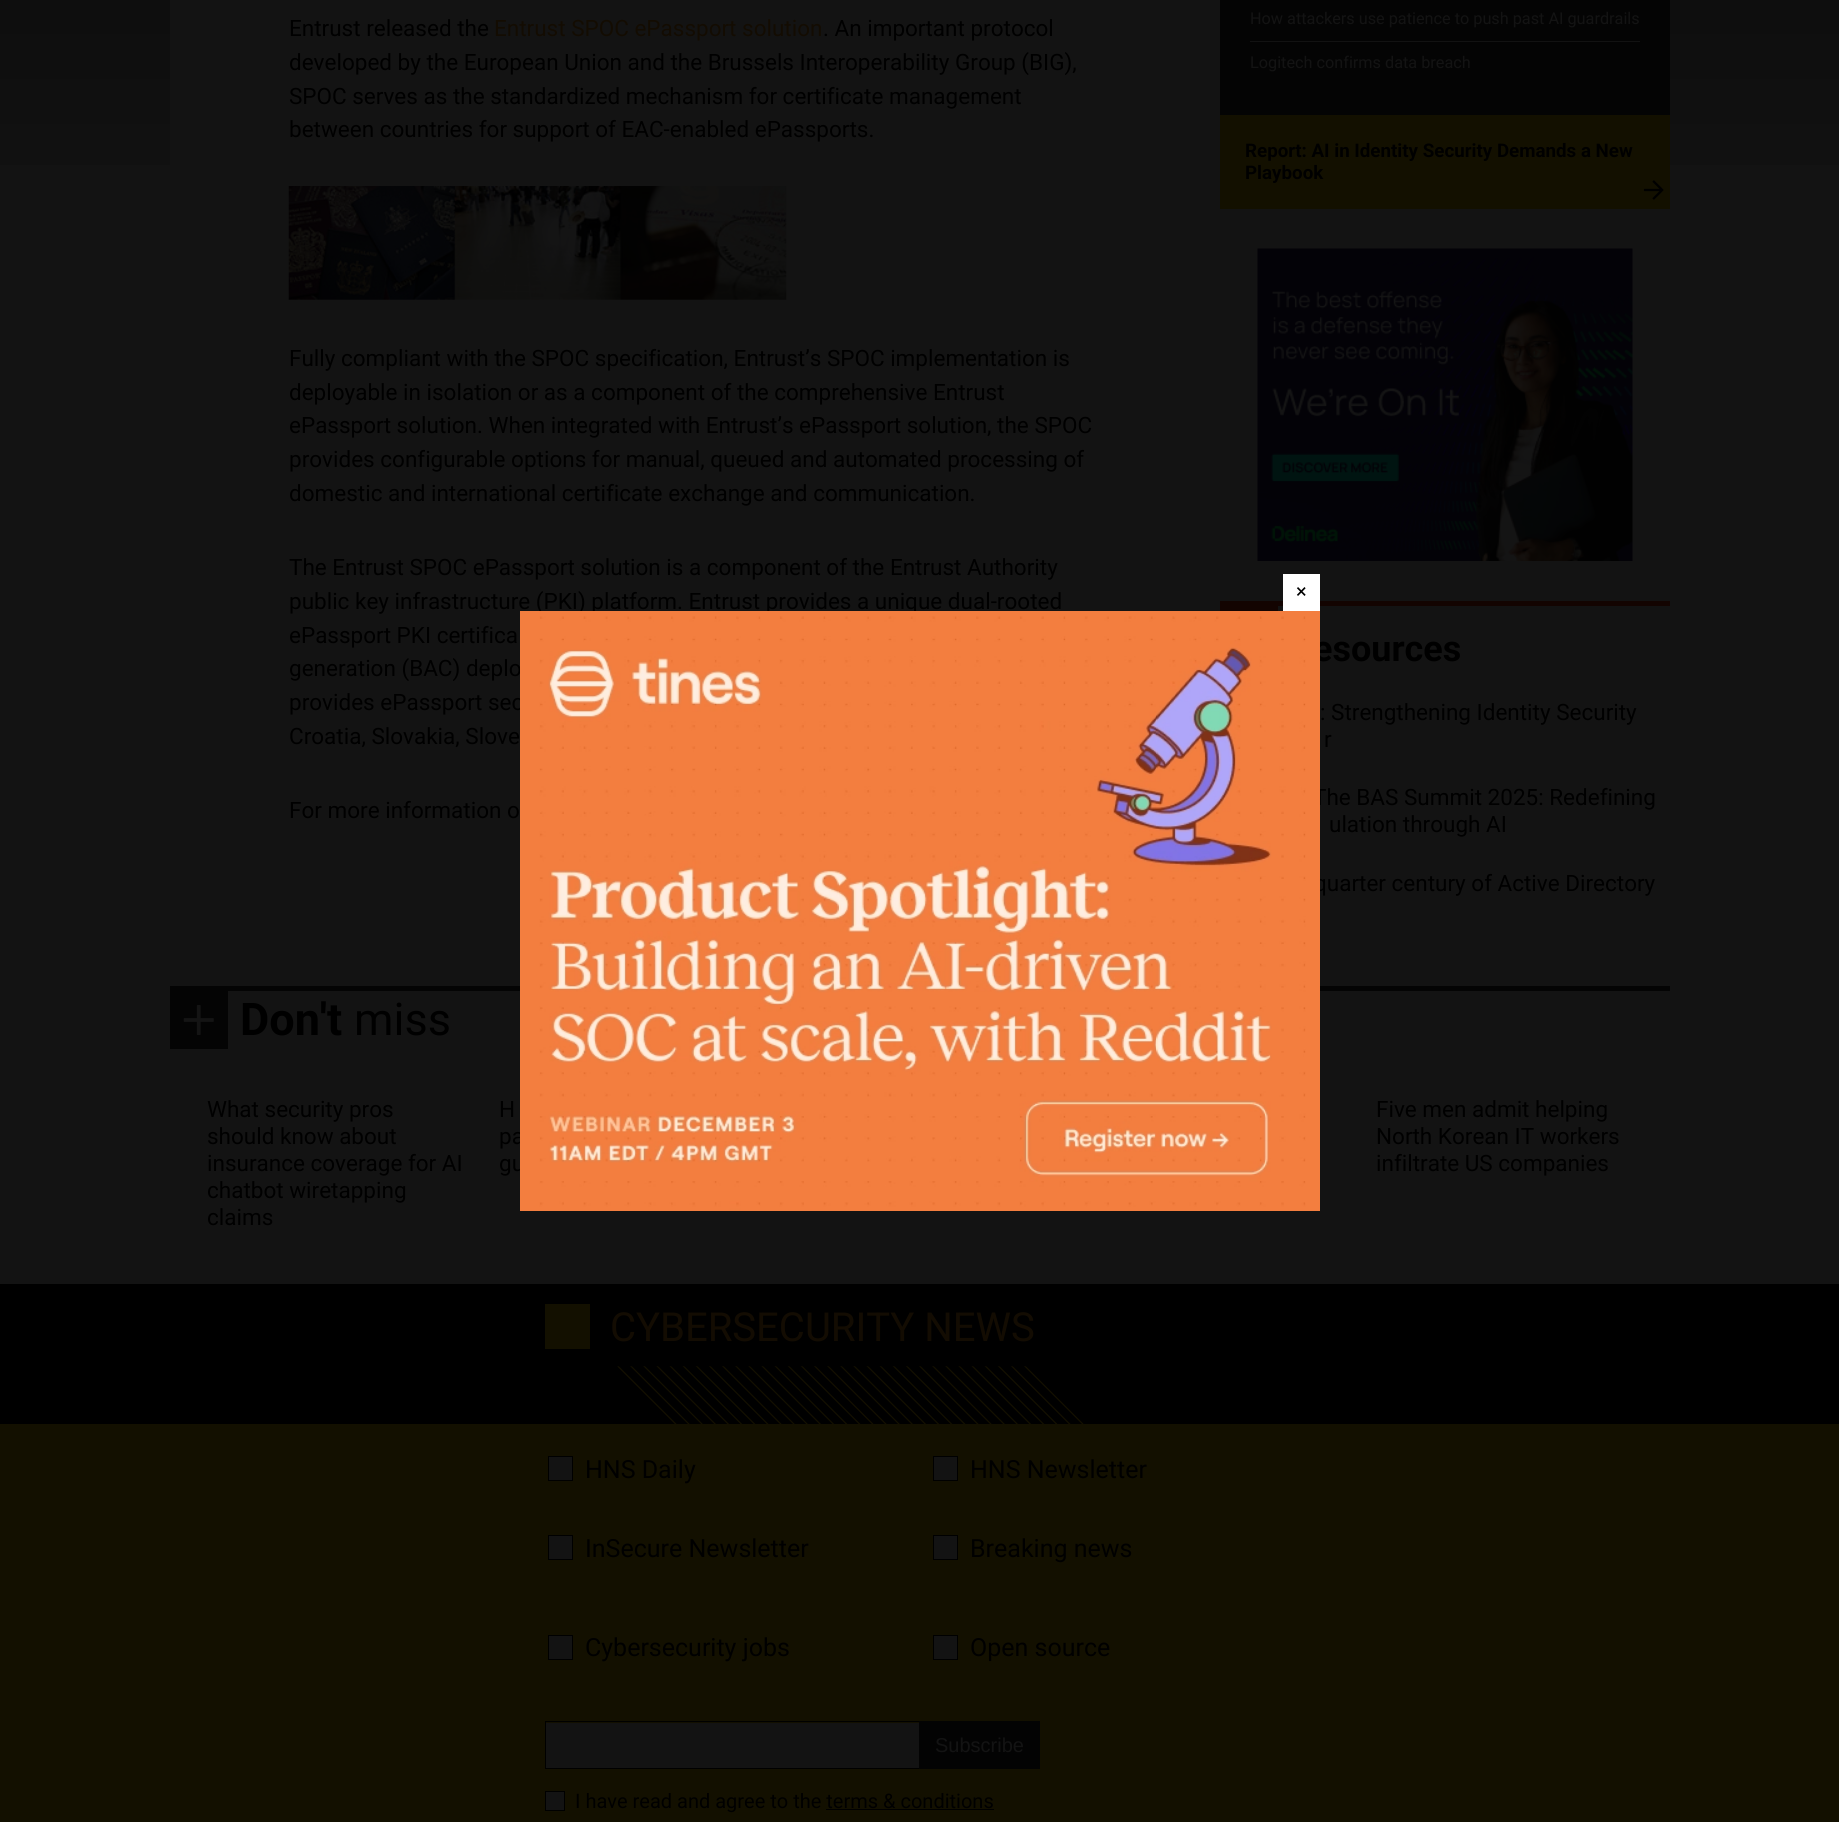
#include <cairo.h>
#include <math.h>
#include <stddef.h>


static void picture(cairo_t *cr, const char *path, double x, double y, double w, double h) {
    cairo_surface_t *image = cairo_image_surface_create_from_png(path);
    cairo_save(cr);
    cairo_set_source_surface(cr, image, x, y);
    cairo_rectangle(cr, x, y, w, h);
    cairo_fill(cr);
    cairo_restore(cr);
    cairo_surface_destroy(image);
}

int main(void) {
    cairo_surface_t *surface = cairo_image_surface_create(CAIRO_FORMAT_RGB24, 1839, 1822);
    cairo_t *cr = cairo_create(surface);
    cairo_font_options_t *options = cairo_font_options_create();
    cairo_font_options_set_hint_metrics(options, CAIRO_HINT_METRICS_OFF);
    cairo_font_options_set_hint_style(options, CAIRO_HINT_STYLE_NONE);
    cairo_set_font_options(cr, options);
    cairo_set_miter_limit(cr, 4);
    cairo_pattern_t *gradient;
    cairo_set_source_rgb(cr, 0.078, 0.078, 0.078);
    cairo_paint(cr);
    gradient = cairo_pattern_create_linear(920, -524, 920, 476);
    cairo_pattern_add_color_stop_rgba(gradient, 0, 0.008, 0.008, 0.008, 1);
    cairo_pattern_add_color_stop_rgba(gradient, 0.8, 0.078, 0.078, 0.078, 1);
    cairo_set_source(cr, gradient);
    cairo_pattern_destroy(gradient);
    cairo_rectangle(cr, 0, 0, 1839, 165);
    cairo_fill(cr);
    cairo_set_source_rgb(cr, 0.078, 0.078, 0.078);
    cairo_rectangle(cr, 170, 0, 1500, 165);
    cairo_fill(cr);
    cairo_select_font_face(cr, "Roboto", CAIRO_FONT_SLANT_NORMAL, CAIRO_FONT_WEIGHT_NORMAL);
    cairo_set_font_size(cr, 22.5);
    cairo_set_source_rgb(cr, 0, 0, 0);
    cairo_move_to(cr, 289, 36);
    cairo_show_text(cr, "Entrust released the");
    cairo_set_source_rgb(cr, 0.075, 0.047, 0.008);
    cairo_move_to(cr, 494, 36);
    cairo_show_text(cr, "Entrust SPOC ePassport solution");
    cairo_set_source_rgb(cr, 0, 0, 0);
    cairo_move_to(cr, 823, 36);
    cairo_show_text(cr, ". An important protocol");
    cairo_move_to(cr, 289, 70);
    cairo_show_text(cr, "developed by the European Union and the Brussels Interoperability Group (BIG),");
    cairo_move_to(cr, 289, 104);
    cairo_show_text(cr, "SPOC serves as the standardized mechanism for certificate management");
    cairo_move_to(cr, 289, 137);
    cairo_show_text(cr, "between countries for support of EAC-enabled ePassports.");
    picture(cr, "img1.png", 288, 186, 499, 114);
    cairo_move_to(cr, 289, 366);
    cairo_show_text(cr, "Fully compliant with the SPOC specification, Entrust’s SPOC implementation is");
    cairo_move_to(cr, 289, 400);
    cairo_show_text(cr, "deployable in isolation or as a component of the comprehensive Entrust");
    cairo_move_to(cr, 289, 433);
    cairo_show_text(cr, "ePassport solution. When integrated with Entrust’s ePassport solution, the SPOC");
    cairo_move_to(cr, 289, 467);
    cairo_show_text(cr, "provides configurable options for manual, queued and automated processing of");
    cairo_move_to(cr, 289, 501);
    cairo_show_text(cr, "domestic and international certificate exchange and communication.");
    cairo_move_to(cr, 289, 575);
    cairo_show_text(cr, "The Entrust SPOC ePassport solution is a component of the Entrust Authority");
    cairo_move_to(cr, 289, 609);
    cairo_show_text(cr, "public key infrastructure (PKI) platform. Entrust provides a unique dual-rooted");
    cairo_move_to(cr, 289, 643);
    cairo_show_text(cr, "ePassport PKI certifica");
    cairo_move_to(cr, 289, 676);
    cairo_show_text(cr, "generation (BAC) deplo");
    cairo_move_to(cr, 289, 710);
    cairo_show_text(cr, "provides ePassport sec");
    cairo_move_to(cr, 289, 744);
    cairo_show_text(cr, "Croatia, Slovakia, Slove");
    cairo_move_to(cr, 289, 818);
    cairo_show_text(cr, "For more information o");
    cairo_set_source_rgb(cr, 0.016, 0.016, 0.016);
    cairo_rectangle(cr, 1220, 0, 450, 115);
    cairo_fill(cr);
    cairo_set_font_size(cr, 16.25);
    cairo_set_source_rgb(cr, 0.078, 0.078, 0.078);
    cairo_move_to(cr, 1250, 24);
    cairo_show_text(cr, "How attackers use patience to push past AI guardrails");
    cairo_set_source_rgb(cr, 0.071, 0.071, 0.071);
    cairo_rectangle(cr, 1250, 41, 390, 1);
    cairo_fill(cr);
    cairo_set_source_rgb(cr, 0.078, 0.078, 0.078);
    cairo_move_to(cr, 1250, 68);
    cairo_show_text(cr, "Logitech confirms data breach");
    cairo_set_source_rgb(cr, 0.078, 0.063, 0);
    cairo_rectangle(cr, 1220, 115, 450, 94);
    cairo_fill(cr);
    picture(cr, "img2.png", 1643, 180, 21, 20);
    cairo_select_font_face(cr, "Roboto", CAIRO_FONT_SLANT_NORMAL, CAIRO_FONT_WEIGHT_BOLD);
    cairo_set_font_size(cr, 18.75);
    cairo_set_source_rgb(cr, 0, 0, 0);
    cairo_move_to(cr, 1245, 157);
    cairo_show_text(cr, "Report: AI in Identity Security Demands a New");
    cairo_move_to(cr, 1245, 179);
    cairo_show_text(cr, "Playbook");
    picture(cr, "img3.png", 1257, 248, 376, 313);
    cairo_set_source_rgb(cr, 0.078, 0.016, 0.004);
    cairo_rectangle(cr, 1220, 601, 450, 5);
    cairo_fill(cr);
    cairo_rectangle(cr, 1220, 606, 58, 5);
    cairo_fill(cr);
    cairo_set_font_size(cr, 36);
    cairo_set_source_rgb(cr, 0, 0, 0);
    cairo_move_to(cr, 1313, 661);
    cairo_show_text(cr, "esources");
    cairo_select_font_face(cr, "Roboto", CAIRO_FONT_SLANT_NORMAL, CAIRO_FONT_WEIGHT_NORMAL);
    cairo_set_font_size(cr, 22.5);
    cairo_move_to(cr, 1320, 720);
    cairo_show_text(cr, ": Strengthening Identity Security");
    cairo_move_to(cr, 1324, 747);
    cairo_show_text(cr, "r");
    cairo_move_to(cr, 1313, 805);
    cairo_show_text(cr, "The BAS Summit 2025: Redefining");
    cairo_move_to(cr, 1329, 832);
    cairo_show_text(cr, "ulation through AI");
    cairo_move_to(cr, 1314, 891);
    cairo_show_text(cr, "quarter century of Active Directory");
    cairo_set_source_rgb(cr, 0.016, 0.016, 0.016);
    cairo_rectangle(cr, 170, 986, 1500, 5);
    cairo_fill(cr);
    cairo_rectangle(cr, 170, 991, 58, 58);
    cairo_fill(cr);
    picture(cr, "img4.png", 183, 1005, 31, 30);
    cairo_select_font_face(cr, "Roboto", CAIRO_FONT_SLANT_NORMAL, CAIRO_FONT_WEIGHT_BOLD);
    cairo_set_font_size(cr, 45);
    cairo_set_source_rgb(cr, 0, 0, 0);
    cairo_move_to(cr, 240, 1035);
    cairo_show_text(cr, "Don't");
    cairo_select_font_face(cr, "Roboto", CAIRO_FONT_SLANT_NORMAL, CAIRO_FONT_WEIGHT_NORMAL);
    cairo_move_to(cr, 354, 1035);
    cairo_show_text(cr, "miss");
    cairo_set_font_size(cr, 22.5);
    cairo_move_to(cr, 207, 1117);
    cairo_show_text(cr, "What security pros");
    cairo_move_to(cr, 207, 1144);
    cairo_show_text(cr, "should know about");
    cairo_move_to(cr, 207, 1171);
    cairo_show_text(cr, "insurance coverage for AI");
    cairo_move_to(cr, 207, 1198);
    cairo_show_text(cr, "chatbot wiretapping");
    cairo_move_to(cr, 207, 1225);
    cairo_show_text(cr, "claims");
    cairo_move_to(cr, 499, 1117);
    cairo_show_text(cr, "H");
    cairo_move_to(cr, 499, 1144);
    cairo_show_text(cr, "pa");
    cairo_move_to(cr, 499, 1171);
    cairo_show_text(cr, "gu");
    cairo_move_to(cr, 1376, 1117);
    cairo_show_text(cr, "Five men admit helping");
    cairo_move_to(cr, 1376, 1144);
    cairo_show_text(cr, "North Korean IT workers");
    cairo_move_to(cr, 1376, 1171);
    cairo_show_text(cr, "infiltrate US companies");
    cairo_set_source_rgb(cr, 1, 1, 1);
    cairo_rectangle(cr, 1283, 574, 37, 37);
    cairo_fill(cr);
    cairo_set_font_size(cr, 20);
    cairo_set_source_rgb(cr, 0, 0, 0);
    cairo_move_to(cr, 1296, 598);
    cairo_show_text(cr, "×");
    picture(cr, "img5.png", 520, 611, 800, 600);
    cairo_rectangle(cr, 0, 1284, 1839, 140);
    cairo_fill(cr);
    cairo_set_source_rgb(cr, 0.078, 0.063, 0);
    cairo_rectangle(cr, 545, 1304, 45, 45);
    cairo_fill(cr);
    cairo_set_font_size(cr, 40);
    cairo_set_source_rgb(cr, 0.075, 0.047, 0.008);
    cairo_move_to(cr, 610, 1341);
    cairo_show_text(cr, "CYBERSECURITY NEWS");
    picture(cr, "img6.png", 617, 1366, 467, 58);
    cairo_set_source_rgb(cr, 0.078, 0.063, 0);
    cairo_rectangle(cr, 0, 1424, 1839, 398);
    cairo_fill(cr);
    cairo_set_source_rgb(cr, 0.078, 0.078, 0.078);
    cairo_rectangle(cr, 548.5, 1456.5, 24, 24);
    cairo_fill_preserve(cr);
    cairo_set_source_rgb(cr, 0, 0, 0);
    cairo_set_line_width(cr, 1);
    cairo_stroke(cr);
    cairo_set_font_size(cr, 25);
    cairo_move_to(cr, 585, 1478);
    cairo_show_text(cr, "HNS Daily");
    cairo_set_source_rgb(cr, 0.078, 0.078, 0.078);
    cairo_rectangle(cr, 933.5, 1456.5, 24, 24);
    cairo_fill_preserve(cr);
    cairo_set_source_rgb(cr, 0, 0, 0);
    cairo_stroke(cr);
    cairo_move_to(cr, 970, 1478);
    cairo_show_text(cr, "HNS Newsletter");
    cairo_set_source_rgb(cr, 0.078, 0.078, 0.078);
    cairo_rectangle(cr, 548.5, 1535.5, 24, 24);
    cairo_fill_preserve(cr);
    cairo_set_source_rgb(cr, 0, 0, 0);
    cairo_stroke(cr);
    cairo_move_to(cr, 585, 1557);
    cairo_show_text(cr, "InSecure Newsletter");
    cairo_set_source_rgb(cr, 0.078, 0.078, 0.078);
    cairo_rectangle(cr, 933.5, 1535.5, 24, 24);
    cairo_fill_preserve(cr);
    cairo_set_source_rgb(cr, 0, 0, 0);
    cairo_stroke(cr);
    cairo_move_to(cr, 970, 1557);
    cairo_show_text(cr, "Breaking news");
    cairo_set_source_rgb(cr, 0.078, 0.078, 0.078);
    cairo_rectangle(cr, 548.5, 1635.5, 24, 24);
    cairo_fill_preserve(cr);
    cairo_set_source_rgb(cr, 0, 0, 0);
    cairo_stroke(cr);
    cairo_move_to(cr, 585, 1656);
    cairo_show_text(cr, "Cybersecurity jobs");
    cairo_set_source_rgb(cr, 0.078, 0.078, 0.078);
    cairo_rectangle(cr, 933.5, 1635.5, 24, 24);
    cairo_fill_preserve(cr);
    cairo_set_source_rgb(cr, 0, 0, 0);
    cairo_stroke(cr);
    cairo_move_to(cr, 970, 1656);
    cairo_show_text(cr, "Open source");
    cairo_set_source_rgb(cr, 0.078, 0.078, 0.078);
    cairo_rectangle(cr, 546, 1723, 373, 45);
    cairo_fill(cr);
    cairo_rectangle(cr, 545.5, 1721.5, 374, 47);
    cairo_set_source_rgb(cr, 0, 0, 0);
    cairo_stroke(cr);
    cairo_set_source_rgb(cr, 0.012, 0.012, 0.012);
    cairo_rectangle(cr, 919, 1721, 121, 48);
    cairo_fill(cr);
    cairo_select_font_face(cr, "Liberation Sans", CAIRO_FONT_SLANT_NORMAL, CAIRO_FONT_WEIGHT_NORMAL);
    cairo_set_font_size(cr, 20);
    cairo_set_source_rgb(cr, 0.078, 0.078, 0.078);
    cairo_move_to(cr, 935, 1752);
    cairo_show_text(cr, "Subscribe");
    cairo_rectangle(cr, 545.5, 1791.5, 19, 19);
    cairo_fill_preserve(cr);
    cairo_set_source_rgb(cr, 0, 0, 0);
    cairo_stroke(cr);
    cairo_select_font_face(cr, "Roboto", CAIRO_FONT_SLANT_NORMAL, CAIRO_FONT_WEIGHT_NORMAL);
    cairo_move_to(cr, 575, 1808);
    cairo_show_text(cr, "I have read and agree to the terms & conditions");
    cairo_rectangle(cr, 826, 1809, 168, 1);
    cairo_fill(cr);
    cairo_surface_write_to_png(surface, "page.png");
    cairo_font_options_destroy(options);
    cairo_destroy(cr);
    cairo_surface_destroy(surface);
    return 0;
}
